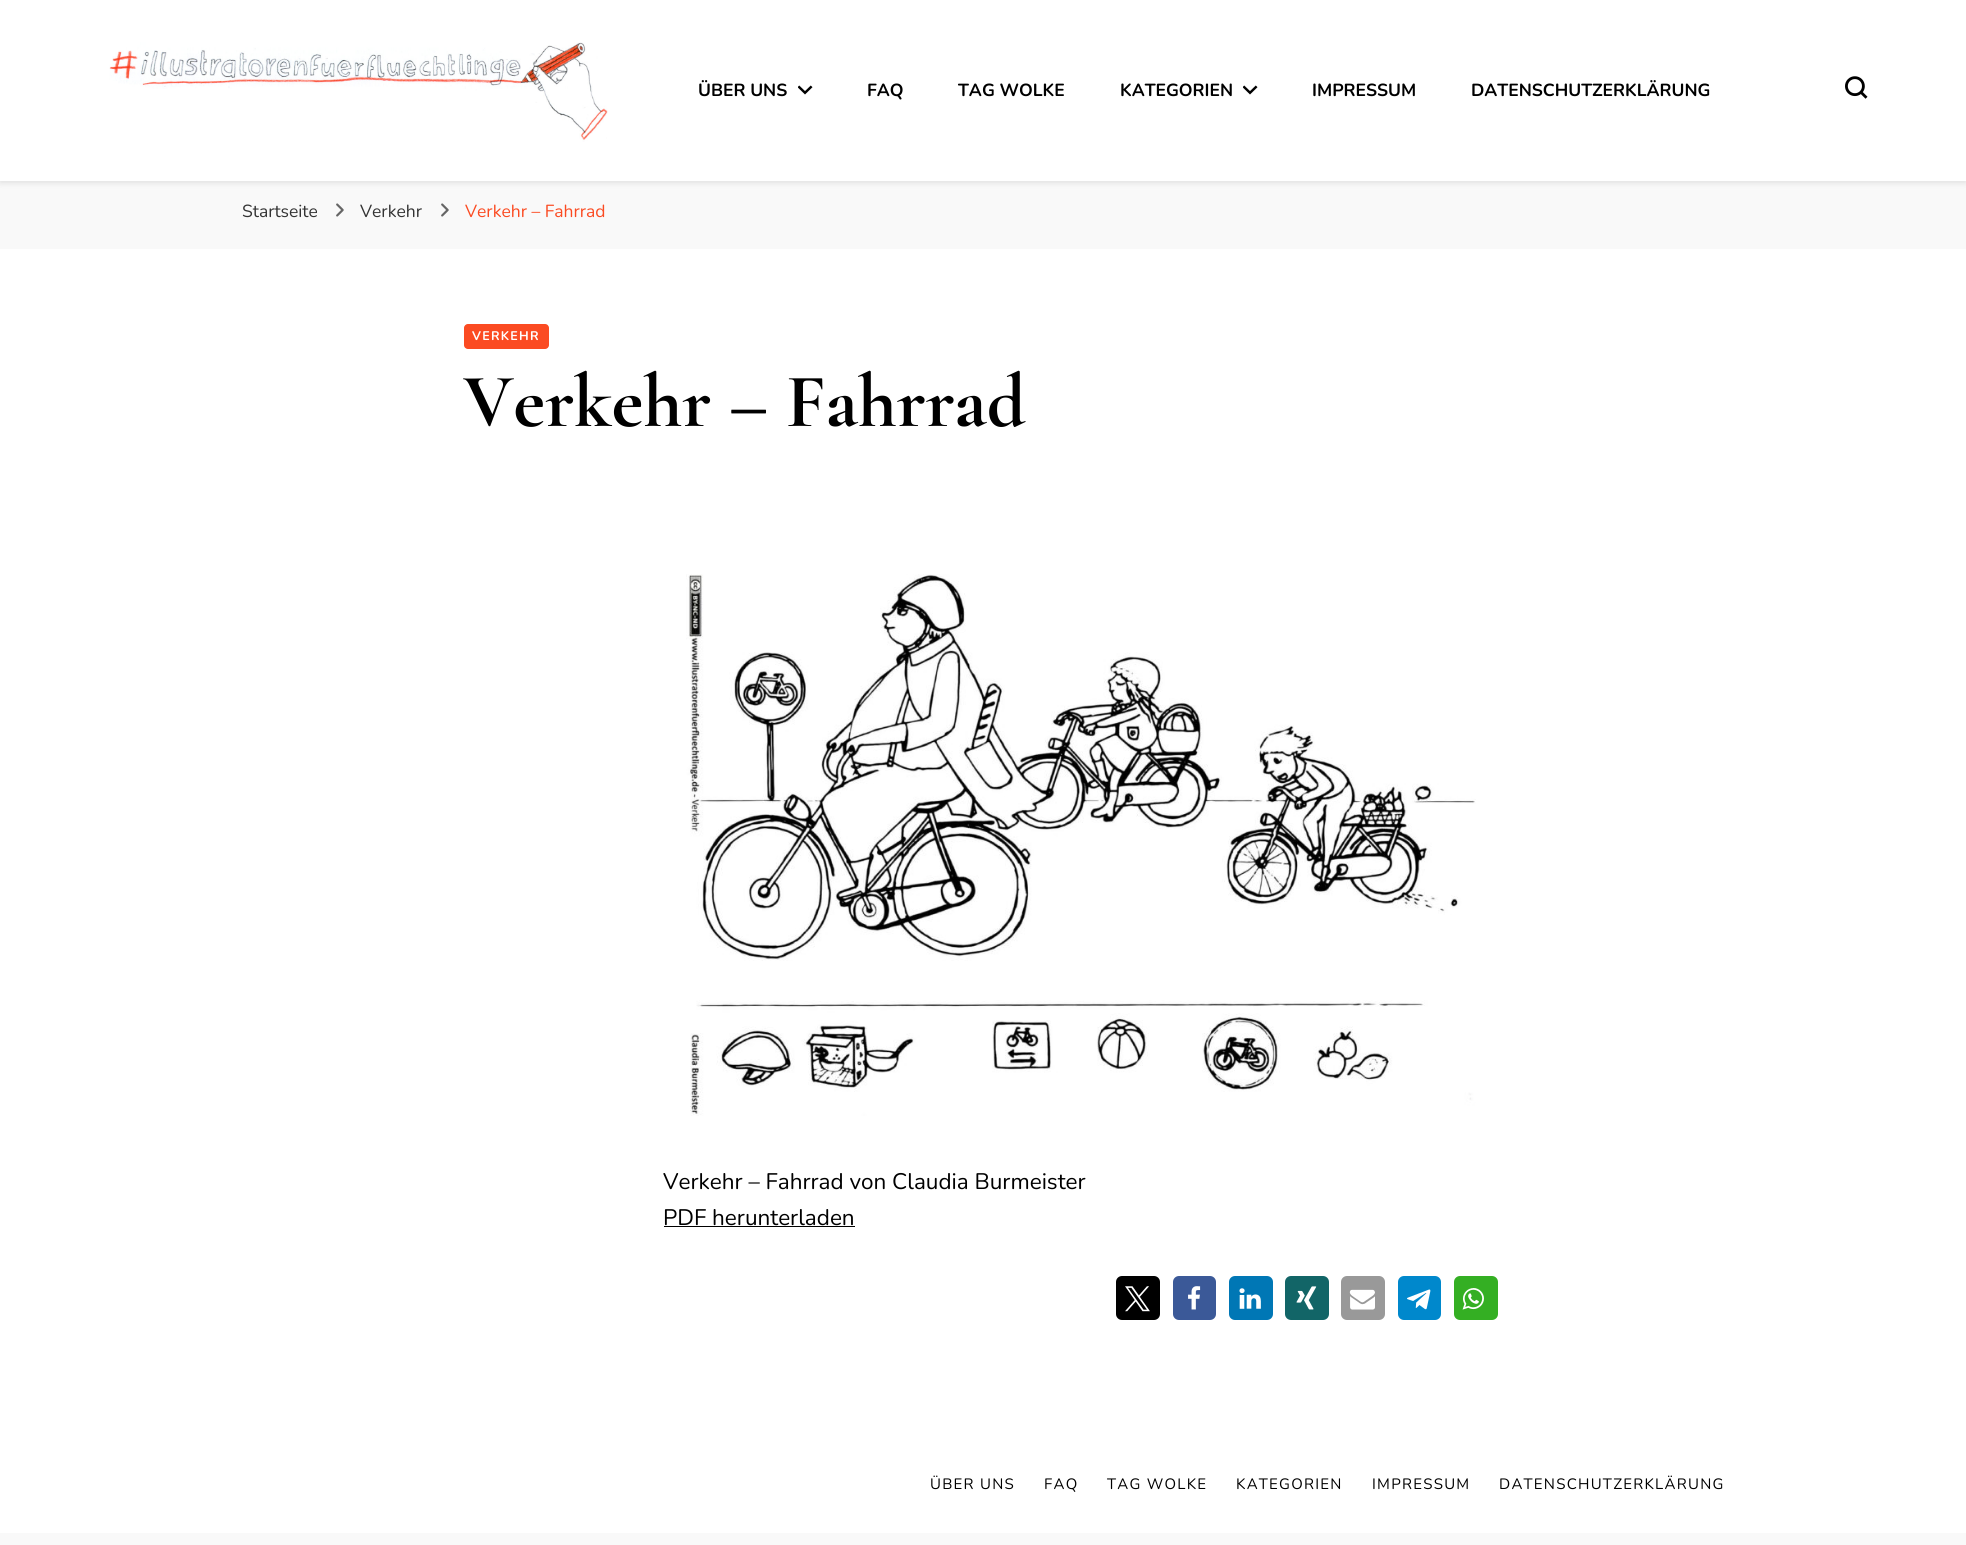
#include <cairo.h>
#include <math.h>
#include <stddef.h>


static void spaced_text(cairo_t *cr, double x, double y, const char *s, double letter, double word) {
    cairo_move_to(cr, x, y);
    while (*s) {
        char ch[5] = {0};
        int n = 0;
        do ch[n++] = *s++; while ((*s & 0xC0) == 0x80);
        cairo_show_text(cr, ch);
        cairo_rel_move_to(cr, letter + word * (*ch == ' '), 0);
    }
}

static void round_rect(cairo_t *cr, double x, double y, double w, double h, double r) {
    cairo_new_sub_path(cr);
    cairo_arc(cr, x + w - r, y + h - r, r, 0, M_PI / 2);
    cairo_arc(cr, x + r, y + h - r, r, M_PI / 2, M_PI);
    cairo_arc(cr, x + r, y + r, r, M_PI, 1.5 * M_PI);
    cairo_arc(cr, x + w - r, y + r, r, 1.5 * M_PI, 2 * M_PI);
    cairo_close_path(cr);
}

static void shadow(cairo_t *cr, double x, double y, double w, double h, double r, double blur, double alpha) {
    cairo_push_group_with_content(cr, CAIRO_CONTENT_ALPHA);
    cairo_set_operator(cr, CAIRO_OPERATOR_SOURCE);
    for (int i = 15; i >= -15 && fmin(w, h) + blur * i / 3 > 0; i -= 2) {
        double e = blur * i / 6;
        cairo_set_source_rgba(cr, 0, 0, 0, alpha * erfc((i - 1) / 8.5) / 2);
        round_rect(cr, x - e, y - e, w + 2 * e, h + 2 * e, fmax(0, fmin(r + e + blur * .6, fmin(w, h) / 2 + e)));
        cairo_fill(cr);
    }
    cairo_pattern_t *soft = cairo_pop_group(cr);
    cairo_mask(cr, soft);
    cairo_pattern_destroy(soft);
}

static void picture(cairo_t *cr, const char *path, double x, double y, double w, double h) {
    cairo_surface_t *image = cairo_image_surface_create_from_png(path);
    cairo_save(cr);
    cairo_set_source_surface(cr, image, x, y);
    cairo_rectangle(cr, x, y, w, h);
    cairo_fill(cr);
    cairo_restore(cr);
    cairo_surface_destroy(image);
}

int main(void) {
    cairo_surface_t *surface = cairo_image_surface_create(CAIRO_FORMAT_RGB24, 1966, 1545);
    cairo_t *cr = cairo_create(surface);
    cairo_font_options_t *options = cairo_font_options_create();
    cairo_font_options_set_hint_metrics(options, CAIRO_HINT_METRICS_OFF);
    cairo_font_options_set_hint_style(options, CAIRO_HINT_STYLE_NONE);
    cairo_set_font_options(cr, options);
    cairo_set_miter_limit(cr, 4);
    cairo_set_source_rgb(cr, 0.973, 0.973, 0.973);
    cairo_paint(cr);
    cairo_set_source_rgb(cr, 0, 0, 0);
    shadow(cr, 0, 1, 1966, 182, 0, 3, 0.1);
    cairo_set_source_rgb(cr, 1, 1, 1);
    cairo_rectangle(cr, 0, 0, 1966, 181);
    cairo_fill(cr);
    picture(cr, "img1.png", 109, 42, 499, 100);
    cairo_select_font_face(cr, "Nunito", CAIRO_FONT_SLANT_NORMAL, CAIRO_FONT_WEIGHT_BOLD);
    cairo_set_font_size(cr, 17.5);
    cairo_set_source_rgb(cr, 0, 0, 0);
    cairo_move_to(cr, 698, 96);
    cairo_show_text(cr, "ÜBER UNS");
    picture(cr, "img2.png", 798, 85, 15, 10);
    cairo_move_to(cr, 867, 96);
    cairo_show_text(cr, "FAQ");
    cairo_move_to(cr, 958, 96);
    cairo_show_text(cr, "TAG WOLKE");
    cairo_move_to(cr, 1120, 96);
    cairo_show_text(cr, "KATEGORIEN");
    picture(cr, "img2.png", 1243, 85, 15, 10);
    cairo_move_to(cr, 1312, 96);
    cairo_show_text(cr, "IMPRESSUM");
    cairo_move_to(cr, 1471, 96);
    cairo_show_text(cr, "DATENSCHUTZERKLÄRUNG");
    picture(cr, "img3.png", 1845, 76, 23, 23);
    cairo_select_font_face(cr, "Nunito", CAIRO_FONT_SLANT_NORMAL, CAIRO_FONT_WEIGHT_NORMAL);
    cairo_set_source_rgb(cr, 0.2, 0.2, 0.2);
    cairo_move_to(cr, 242, 217);
    cairo_show_text(cr, "Startseite");
    picture(cr, "img4.png", 336, 203, 8, 14);
    cairo_move_to(cr, 360, 217);
    cairo_show_text(cr, "Verkehr");
    picture(cr, "img4.png", 441, 203, 8, 14);
    cairo_set_source_rgb(cr, 0.984, 0.294, 0.133);
    cairo_move_to(cr, 465, 217);
    cairo_show_text(cr, "Verkehr – Fahrrad");
    cairo_set_source_rgb(cr, 1, 1, 1);
    cairo_rectangle(cr, 0, 249, 1966, 1284);
    cairo_fill(cr);
    cairo_set_source_rgb(cr, 0.984, 0.294, 0.133);
    round_rect(cr, 464, 324, 85, 25, 4);
    cairo_fill(cr);
    cairo_select_font_face(cr, "Nunito", CAIRO_FONT_SLANT_NORMAL, CAIRO_FONT_WEIGHT_BOLD);
    cairo_set_font_size(cr, 12.5);
    cairo_set_source_rgb(cr, 1, 1, 1);
    spaced_text(cr, 472, 340, "VERKEHR", 1.25, 0);
    cairo_select_font_face(cr, "Cormorant Garamond", CAIRO_FONT_SLANT_NORMAL, CAIRO_FONT_WEIGHT_BOLD);
    cairo_set_font_size(cr, 76.25);
    cairo_set_source_rgb(cr, 0, 0, 0);
    cairo_move_to(cr, 463, 426);
    cairo_show_text(cr, "Verkehr – Fahrrad");
    picture(cr, "img5.png", 686, 574, 790, 542);
    cairo_select_font_face(cr, "Nunito", CAIRO_FONT_SLANT_NORMAL, CAIRO_FONT_WEIGHT_NORMAL);
    cairo_set_font_size(cr, 22.5);
    cairo_move_to(cr, 663, 1189);
    cairo_show_text(cr, "Verkehr – Fahrrad von Claudia Burmeister");
    cairo_move_to(cr, 663, 1225);
    cairo_show_text(cr, "PDF herunterladen");
    cairo_rectangle(cr, 664, 1226, 191, 1);
    cairo_fill(cr);
    round_rect(cr, 1116, 1276, 44, 44, 6);
    cairo_fill(cr);
    picture(cr, "img6.png", 1125, 1286, 25, 26);
    cairo_set_source_rgb(cr, 0.231, 0.349, 0.596);
    round_rect(cr, 1173, 1276, 43, 44, 6);
    cairo_fill(cr);
    picture(cr, "img7.png", 1188, 1286, 13, 24);
    cairo_set_source_rgb(cr, 0, 0.467, 0.71);
    round_rect(cr, 1229, 1276, 44, 44, 6);
    cairo_fill(cr);
    picture(cr, "img8.png", 1239, 1288, 22, 21);
    cairo_set_source_rgb(cr, 0.071, 0.396, 0.404);
    round_rect(cr, 1285, 1276, 44, 44, 6);
    cairo_fill(cr);
    picture(cr, "img9.png", 1296, 1286, 21, 24);
    cairo_set_source_rgb(cr, 0.6, 0.6, 0.6);
    round_rect(cr, 1341, 1276, 44, 44, 6);
    cairo_fill(cr);
    picture(cr, "img10.png", 1349, 1289, 26, 21);
    cairo_set_source_rgb(cr, 0, 0.533, 0.8);
    round_rect(cr, 1398, 1276, 43, 44, 6);
    cairo_fill(cr);
    picture(cr, "img11.png", 1407, 1289, 24, 21);
    cairo_set_source_rgb(cr, 0.204, 0.686, 0.137);
    round_rect(cr, 1454, 1276, 44, 44, 6);
    cairo_fill(cr);
    picture(cr, "img12.png", 1462, 1288, 22, 22);
    cairo_set_font_size(cr, 15);
    cairo_set_source_rgb(cr, 0, 0, 0);
    spaced_text(cr, 930, 1489, "ÜBER UNS", 1.25, 0);
    spaced_text(cr, 1044, 1489, "FAQ", 1.25, 0);
    spaced_text(cr, 1107, 1489, "TAG WOLKE", 1.25, 0);
    spaced_text(cr, 1236, 1489, "KATEGORIEN", 1.25, 0);
    spaced_text(cr, 1372, 1489, "IMPRESSUM", 1.25, 0);
    spaced_text(cr, 1499, 1489, "DATENSCHUTZERKLÄRUNG", 1.25, 0);
    cairo_surface_write_to_png(surface, "page.png");
    cairo_font_options_destroy(options);
    cairo_destroy(cr);
    cairo_surface_destroy(surface);
    return 0;
}
